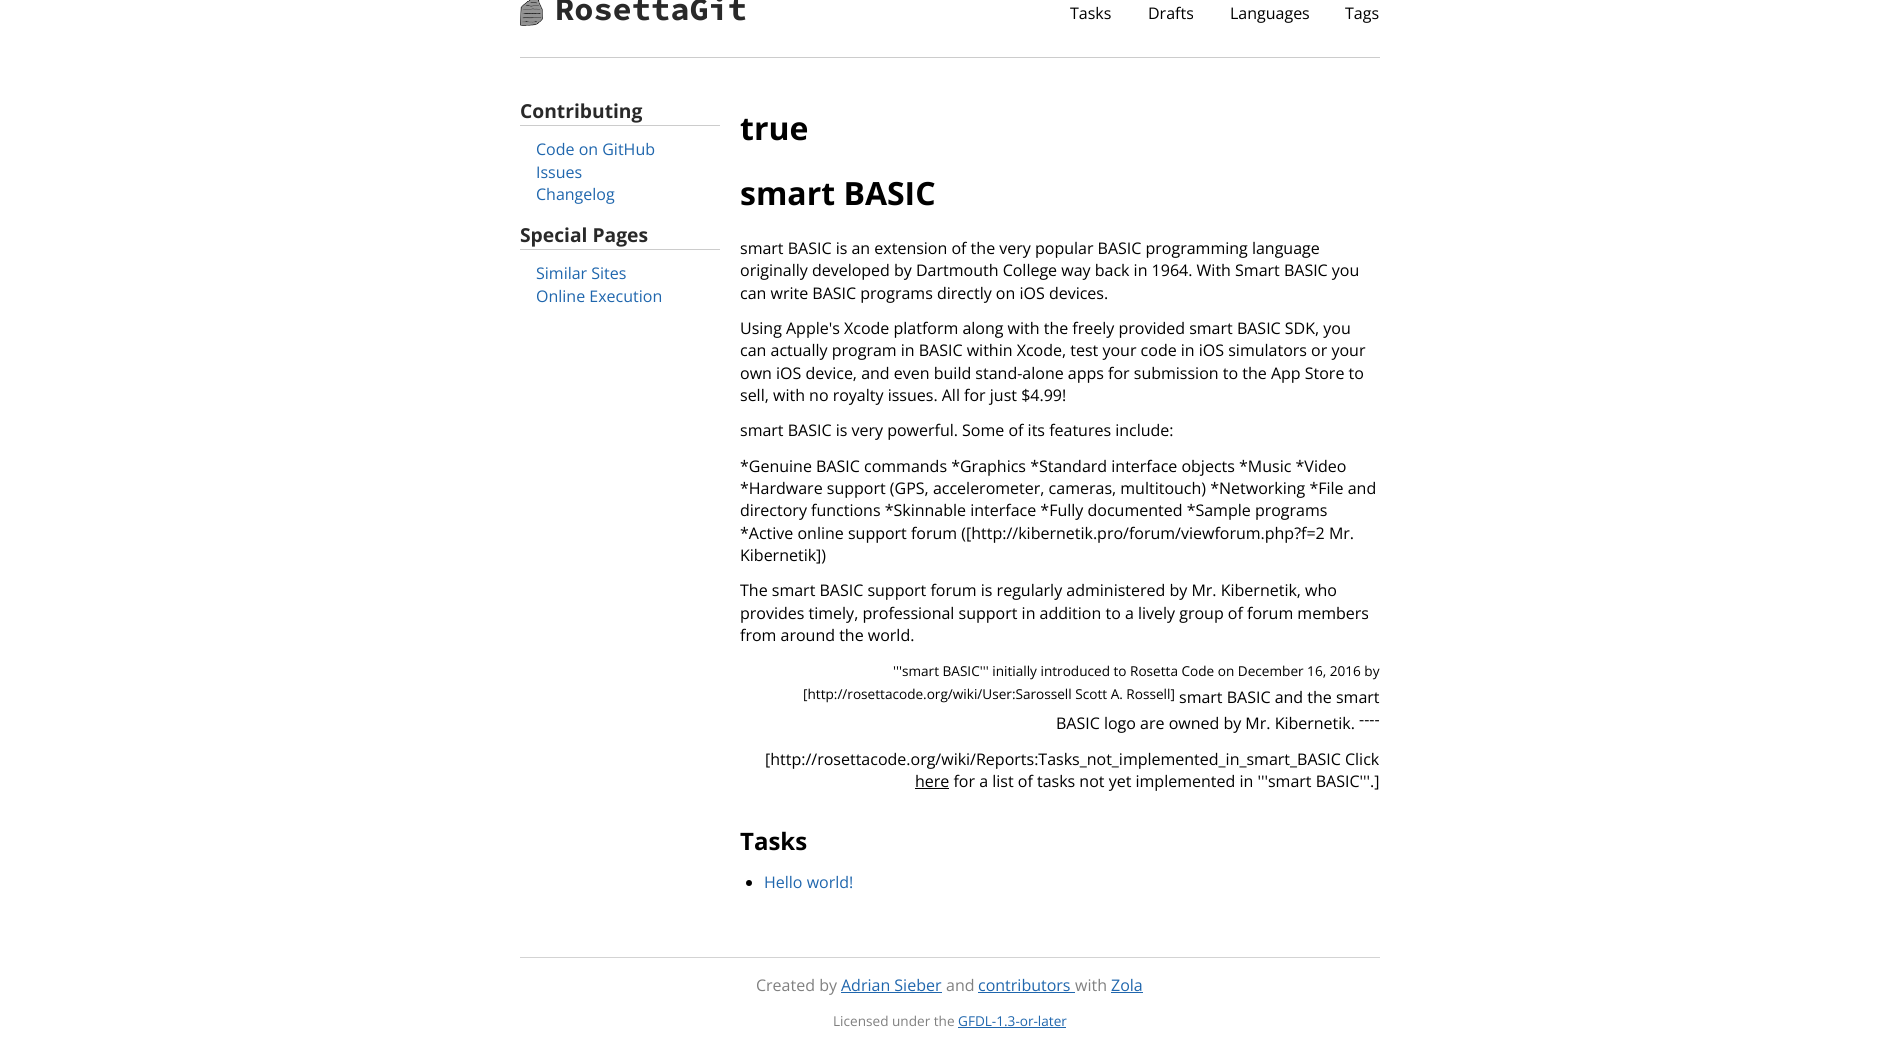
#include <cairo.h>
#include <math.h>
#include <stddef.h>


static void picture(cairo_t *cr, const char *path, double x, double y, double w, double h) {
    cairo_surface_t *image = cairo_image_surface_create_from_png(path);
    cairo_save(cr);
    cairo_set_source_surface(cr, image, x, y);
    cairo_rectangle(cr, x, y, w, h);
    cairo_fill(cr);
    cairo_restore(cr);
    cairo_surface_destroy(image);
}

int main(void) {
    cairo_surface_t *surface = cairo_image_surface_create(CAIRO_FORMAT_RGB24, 1899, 1053);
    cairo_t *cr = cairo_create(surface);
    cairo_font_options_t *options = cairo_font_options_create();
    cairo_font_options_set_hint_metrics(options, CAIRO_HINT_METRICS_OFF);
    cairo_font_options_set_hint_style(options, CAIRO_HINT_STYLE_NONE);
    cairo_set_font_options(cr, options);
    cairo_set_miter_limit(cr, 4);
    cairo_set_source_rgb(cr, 1, 1, 1);
    cairo_paint(cr);
    cairo_set_source_rgb(cr, 0.8, 0.8, 0.8);
    cairo_rectangle(cr, 520, 57, 860, 1);
    cairo_fill(cr);
    picture(cr, "img1.png", 520, 0, 23, 26);
    cairo_select_font_face(cr, "Source Code Pro", CAIRO_FONT_SLANT_NORMAL, CAIRO_FONT_WEIGHT_BOLD);
    cairo_set_font_size(cr, 32);
    cairo_set_source_rgb(cr, 0.161, 0.161, 0.161);
    cairo_move_to(cr, 555, 20);
    cairo_show_text(cr, "RosettaGit");
    cairo_select_font_face(cr, "Open Sans", CAIRO_FONT_SLANT_NORMAL, CAIRO_FONT_WEIGHT_NORMAL);
    cairo_set_font_size(cr, 16);
    cairo_set_source_rgb(cr, 0, 0, 0);
    cairo_move_to(cr, 1070, 19);
    cairo_show_text(cr, "Tasks");
    cairo_move_to(cr, 1148, 19);
    cairo_show_text(cr, "Drafts");
    cairo_move_to(cr, 1230, 19);
    cairo_show_text(cr, "Languages");
    cairo_move_to(cr, 1345, 19);
    cairo_show_text(cr, "Tags");
    cairo_set_source_rgb(cr, 0.8, 0.8, 0.8);
    cairo_rectangle(cr, 520, 125, 200, 1);
    cairo_fill(cr);
    cairo_select_font_face(cr, "Open Sans", CAIRO_FONT_SLANT_NORMAL, CAIRO_FONT_WEIGHT_BOLD);
    cairo_set_font_size(cr, 19.25);
    cairo_set_source_rgb(cr, 0.161, 0.161, 0.161);
    cairo_move_to(cr, 520, 118);
    cairo_show_text(cr, "Contributing");
    cairo_select_font_face(cr, "Open Sans", CAIRO_FONT_SLANT_NORMAL, CAIRO_FONT_WEIGHT_NORMAL);
    cairo_set_font_size(cr, 16);
    cairo_set_source_rgb(cr, 0.122, 0.4, 0.678);
    cairo_move_to(cr, 536, 155);
    cairo_show_text(cr, "Code on GitHub");
    cairo_move_to(cr, 536, 178);
    cairo_show_text(cr, "Issues");
    cairo_move_to(cr, 536, 200);
    cairo_show_text(cr, "Changelog");
    cairo_set_source_rgb(cr, 0.8, 0.8, 0.8);
    cairo_rectangle(cr, 520, 249, 200, 1);
    cairo_fill(cr);
    cairo_select_font_face(cr, "Open Sans", CAIRO_FONT_SLANT_NORMAL, CAIRO_FONT_WEIGHT_BOLD);
    cairo_set_font_size(cr, 19.25);
    cairo_set_source_rgb(cr, 0.161, 0.161, 0.161);
    cairo_move_to(cr, 520, 242);
    cairo_show_text(cr, "Special Pages");
    cairo_select_font_face(cr, "Open Sans", CAIRO_FONT_SLANT_NORMAL, CAIRO_FONT_WEIGHT_NORMAL);
    cairo_set_font_size(cr, 16);
    cairo_set_source_rgb(cr, 0.122, 0.4, 0.678);
    cairo_move_to(cr, 536, 279);
    cairo_show_text(cr, "Similar Sites");
    cairo_move_to(cr, 536, 302);
    cairo_show_text(cr, "Online Execution");
    cairo_select_font_face(cr, "Open Sans", CAIRO_FONT_SLANT_NORMAL, CAIRO_FONT_WEIGHT_BOLD);
    cairo_set_font_size(cr, 32);
    cairo_set_source_rgb(cr, 0, 0, 0);
    cairo_move_to(cr, 740, 140);
    cairo_show_text(cr, "true");
    cairo_move_to(cr, 740, 205);
    cairo_show_text(cr, "smart BASIC");
    cairo_select_font_face(cr, "Open Sans", CAIRO_FONT_SLANT_NORMAL, CAIRO_FONT_WEIGHT_NORMAL);
    cairo_set_font_size(cr, 16);
    cairo_move_to(cr, 740, 254);
    cairo_show_text(cr, "smart BASIC is an extension of the very popular BASIC programming language");
    cairo_move_to(cr, 740, 276);
    cairo_show_text(cr, "originally developed by Dartmouth College way back in 1964. With Smart BASIC you");
    cairo_move_to(cr, 740, 299);
    cairo_show_text(cr, "can write BASIC programs directly on iOS devices.");
    cairo_move_to(cr, 740, 334);
    cairo_show_text(cr, "Using Apple's Xcode platform along with the freely provided smart BASIC SDK, you");
    cairo_move_to(cr, 740, 356);
    cairo_show_text(cr, "can actually program in BASIC within Xcode, test your code in iOS simulators or your");
    cairo_move_to(cr, 740, 379);
    cairo_show_text(cr, "own iOS device, and even build stand-alone apps for submission to the App Store to");
    cairo_move_to(cr, 740, 401);
    cairo_show_text(cr, "sell, with no royalty issues. All for just $4.99!");
    cairo_move_to(cr, 740, 436);
    cairo_show_text(cr, "smart BASIC is very powerful. Some of its features include:");
    cairo_move_to(cr, 740, 472);
    cairo_show_text(cr, "*Genuine BASIC commands *Graphics *Standard interface objects *Music *Video");
    cairo_move_to(cr, 740, 494);
    cairo_show_text(cr, "*Hardware support (GPS, accelerometer, cameras, multitouch) *Networking *File and");
    cairo_move_to(cr, 740, 516);
    cairo_show_text(cr, "directory functions *Skinnable interface *Fully documented *Sample programs");
    cairo_move_to(cr, 740, 539);
    cairo_show_text(cr, "*Active online support forum ([http://kibernetik.pro/forum/viewforum.php?f=2 Mr.");
    cairo_move_to(cr, 740, 561);
    cairo_show_text(cr, "Kibernetik])");
    cairo_move_to(cr, 740, 596);
    cairo_show_text(cr, "The smart BASIC support forum is regularly administered by Mr. Kibernetik, who");
    cairo_move_to(cr, 740, 619);
    cairo_show_text(cr, "provides timely, professional support in addition to a lively group of forum members");
    cairo_move_to(cr, 740, 641);
    cairo_show_text(cr, "from around the world.");
    cairo_set_font_size(cr, 13.6);
    cairo_move_to(cr, 893, 676);
    cairo_show_text(cr, "'''smart BASIC''' initially introduced to Rosetta Code on December 16, 2016 by");
    cairo_move_to(cr, 803, 699);
    cairo_show_text(cr, "[http://rosettacode.org/wiki/User:Sarossell Scott A. Rossell]");
    cairo_set_font_size(cr, 16);
    cairo_move_to(cr, 1179, 703);
    cairo_show_text(cr, "smart BASIC and the smart");
    cairo_move_to(cr, 1056, 729);
    cairo_show_text(cr, "BASIC logo are owned by Mr. Kibernetik.");
    cairo_move_to(cr, 1359, 725);
    cairo_show_text(cr, "----");
    cairo_move_to(cr, 765, 765);
    cairo_show_text(cr, "[http://rosettacode.org/wiki/Reports:Tasks_not_implemented_in_smart_BASIC Click");
    cairo_rectangle(cr, 915, 788, 34, 1);
    cairo_fill(cr);
    cairo_move_to(cr, 915, 787);
    cairo_show_text(cr, "here for a list of tasks not yet implemented in '''smart BASIC'''.]");
    cairo_select_font_face(cr, "Open Sans", CAIRO_FONT_SLANT_NORMAL, CAIRO_FONT_WEIGHT_BOLD);
    cairo_set_font_size(cr, 24);
    cairo_move_to(cr, 740, 850);
    cairo_show_text(cr, "Tasks");
    cairo_new_path(cr);
    cairo_arc(cr, 749, 883, 3, 0, 2 * M_PI);
    cairo_fill(cr);
    cairo_select_font_face(cr, "Open Sans", CAIRO_FONT_SLANT_NORMAL, CAIRO_FONT_WEIGHT_NORMAL);
    cairo_set_font_size(cr, 16);
    cairo_set_source_rgb(cr, 0.122, 0.4, 0.678);
    cairo_move_to(cr, 764, 888);
    cairo_show_text(cr, "Hello world!");
    cairo_set_source_rgb(cr, 0.827, 0.827, 0.827);
    cairo_rectangle(cr, 520, 957, 860, 1);
    cairo_fill(cr);
    cairo_set_source_rgb(cr, 0.502, 0.502, 0.502);
    cairo_move_to(cr, 756, 991);
    cairo_show_text(cr, "Created by");
    cairo_set_source_rgb(cr, 0.122, 0.4, 0.678);
    cairo_move_to(cr, 841, 991);
    cairo_show_text(cr, "Adrian Sieber");
    cairo_rectangle(cr, 841, 992, 101, 1);
    cairo_fill(cr);
    cairo_set_source_rgb(cr, 0.502, 0.502, 0.502);
    cairo_move_to(cr, 946, 991);
    cairo_show_text(cr, "and");
    cairo_set_source_rgb(cr, 0.122, 0.4, 0.678);
    cairo_move_to(cr, 978, 991);
    cairo_show_text(cr, "contributors");
    cairo_rectangle(cr, 978, 992, 97, 1);
    cairo_fill(cr);
    cairo_set_source_rgb(cr, 0.502, 0.502, 0.502);
    cairo_move_to(cr, 1075, 991);
    cairo_show_text(cr, "with");
    cairo_set_source_rgb(cr, 0.122, 0.4, 0.678);
    cairo_move_to(cr, 1111, 991);
    cairo_show_text(cr, "Zola");
    cairo_rectangle(cr, 1111, 992, 32, 1);
    cairo_fill(cr);
    cairo_set_font_size(cr, 13.6);
    cairo_set_source_rgb(cr, 0.502, 0.502, 0.502);
    cairo_move_to(cr, 833, 1026);
    cairo_show_text(cr, "Licensed under the");
    cairo_set_source_rgb(cr, 0.122, 0.4, 0.678);
    cairo_move_to(cr, 958, 1026);
    cairo_show_text(cr, "GFDL-1.3-or-later");
    cairo_rectangle(cr, 958, 1027, 108, 1);
    cairo_fill(cr);
    cairo_surface_write_to_png(surface, "page.png");
    cairo_font_options_destroy(options);
    cairo_destroy(cr);
    cairo_surface_destroy(surface);
    return 0;
}
